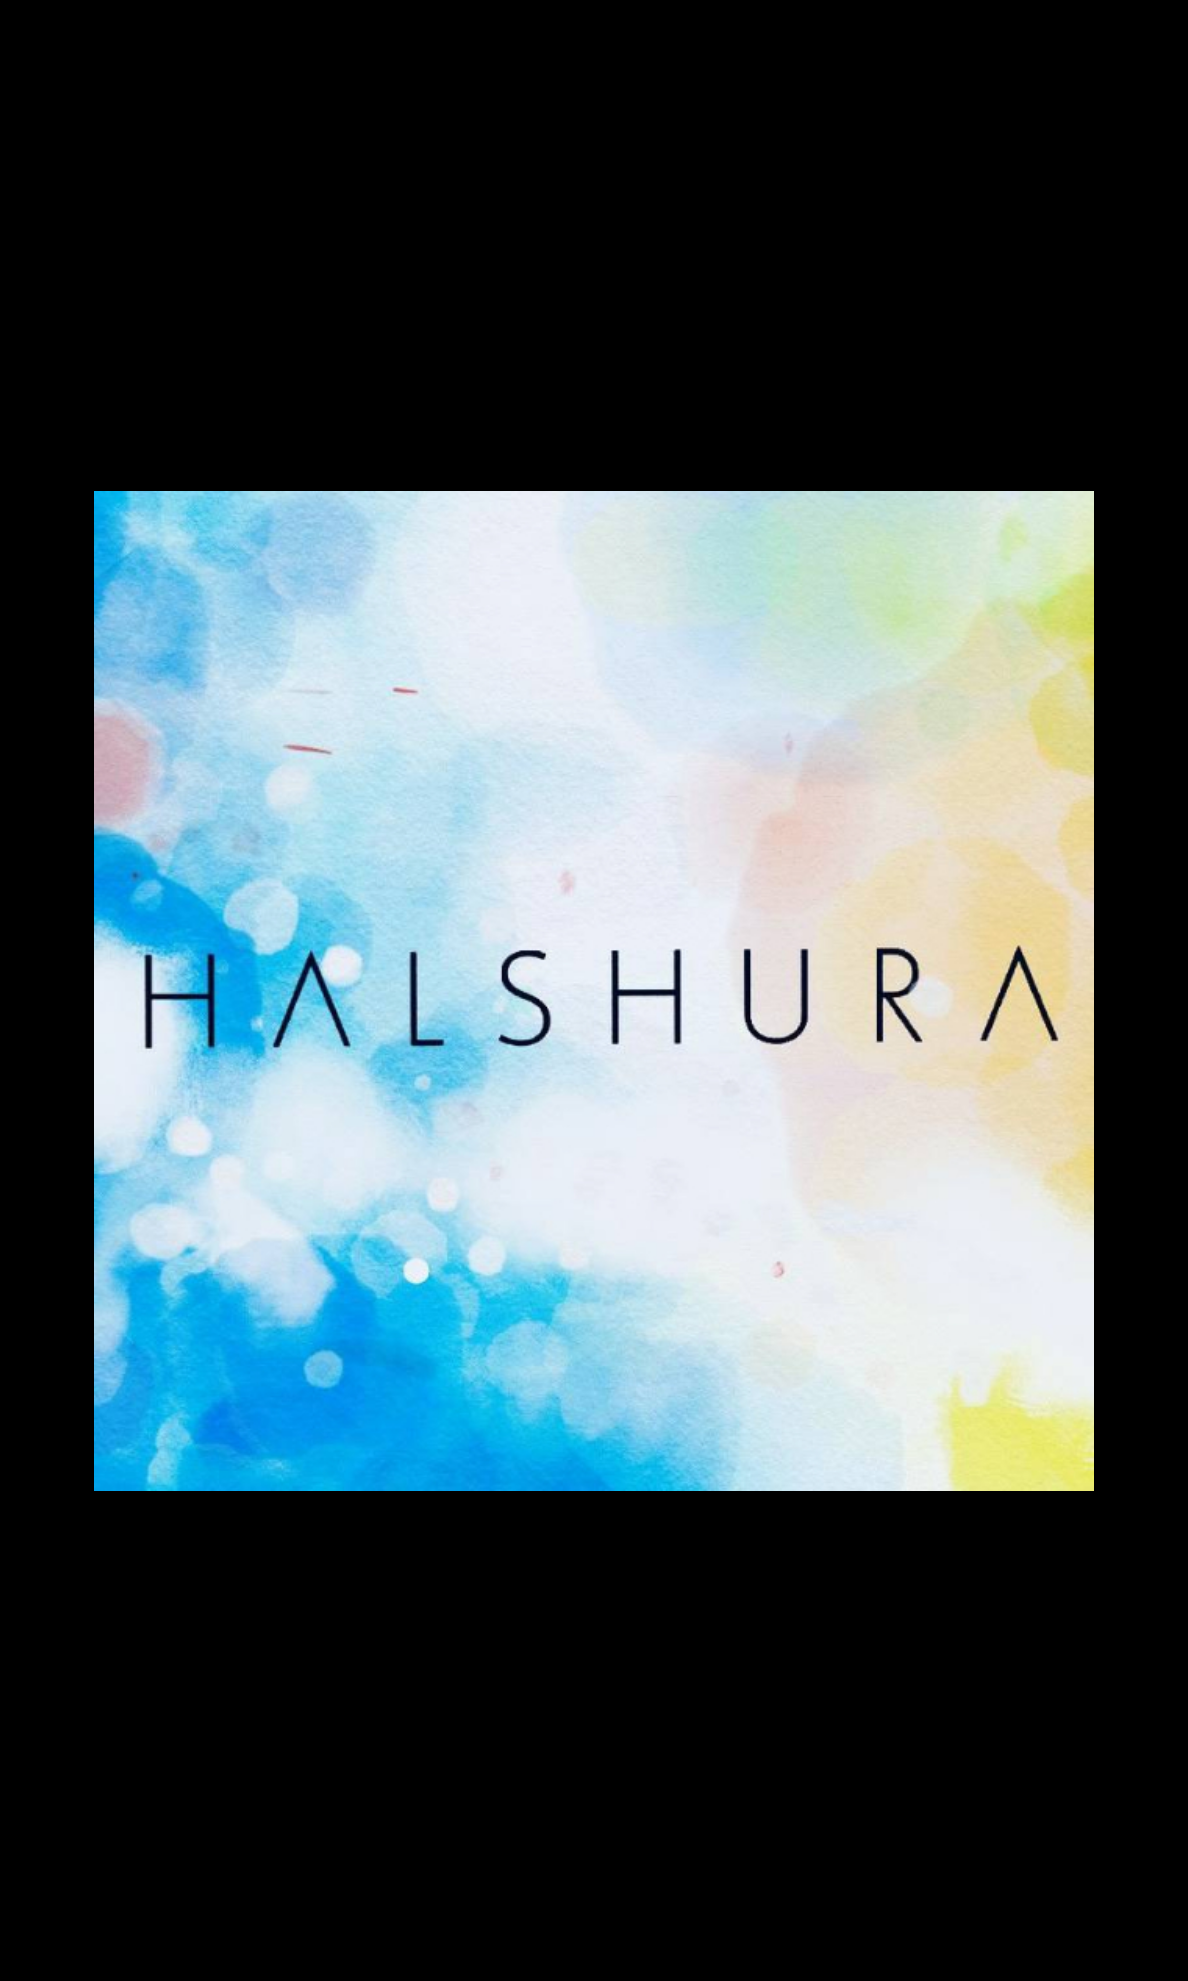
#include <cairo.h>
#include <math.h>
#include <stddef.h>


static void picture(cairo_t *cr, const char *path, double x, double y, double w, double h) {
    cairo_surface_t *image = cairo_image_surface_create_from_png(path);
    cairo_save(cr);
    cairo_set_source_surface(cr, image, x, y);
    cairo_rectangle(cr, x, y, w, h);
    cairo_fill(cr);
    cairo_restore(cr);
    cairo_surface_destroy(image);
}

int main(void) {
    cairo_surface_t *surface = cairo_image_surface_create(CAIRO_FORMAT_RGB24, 1188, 1981);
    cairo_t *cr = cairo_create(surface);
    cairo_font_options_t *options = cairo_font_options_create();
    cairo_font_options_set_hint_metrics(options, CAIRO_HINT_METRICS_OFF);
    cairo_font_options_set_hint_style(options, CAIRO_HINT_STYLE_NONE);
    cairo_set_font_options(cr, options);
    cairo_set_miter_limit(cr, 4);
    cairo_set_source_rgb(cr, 0, 0, 0);
    cairo_paint(cr);
    picture(cr, "img1.png", 94, 491, 1000, 1000);
    cairo_surface_write_to_png(surface, "page.png");
    cairo_font_options_destroy(options);
    cairo_destroy(cr);
    cairo_surface_destroy(surface);
    return 0;
}
